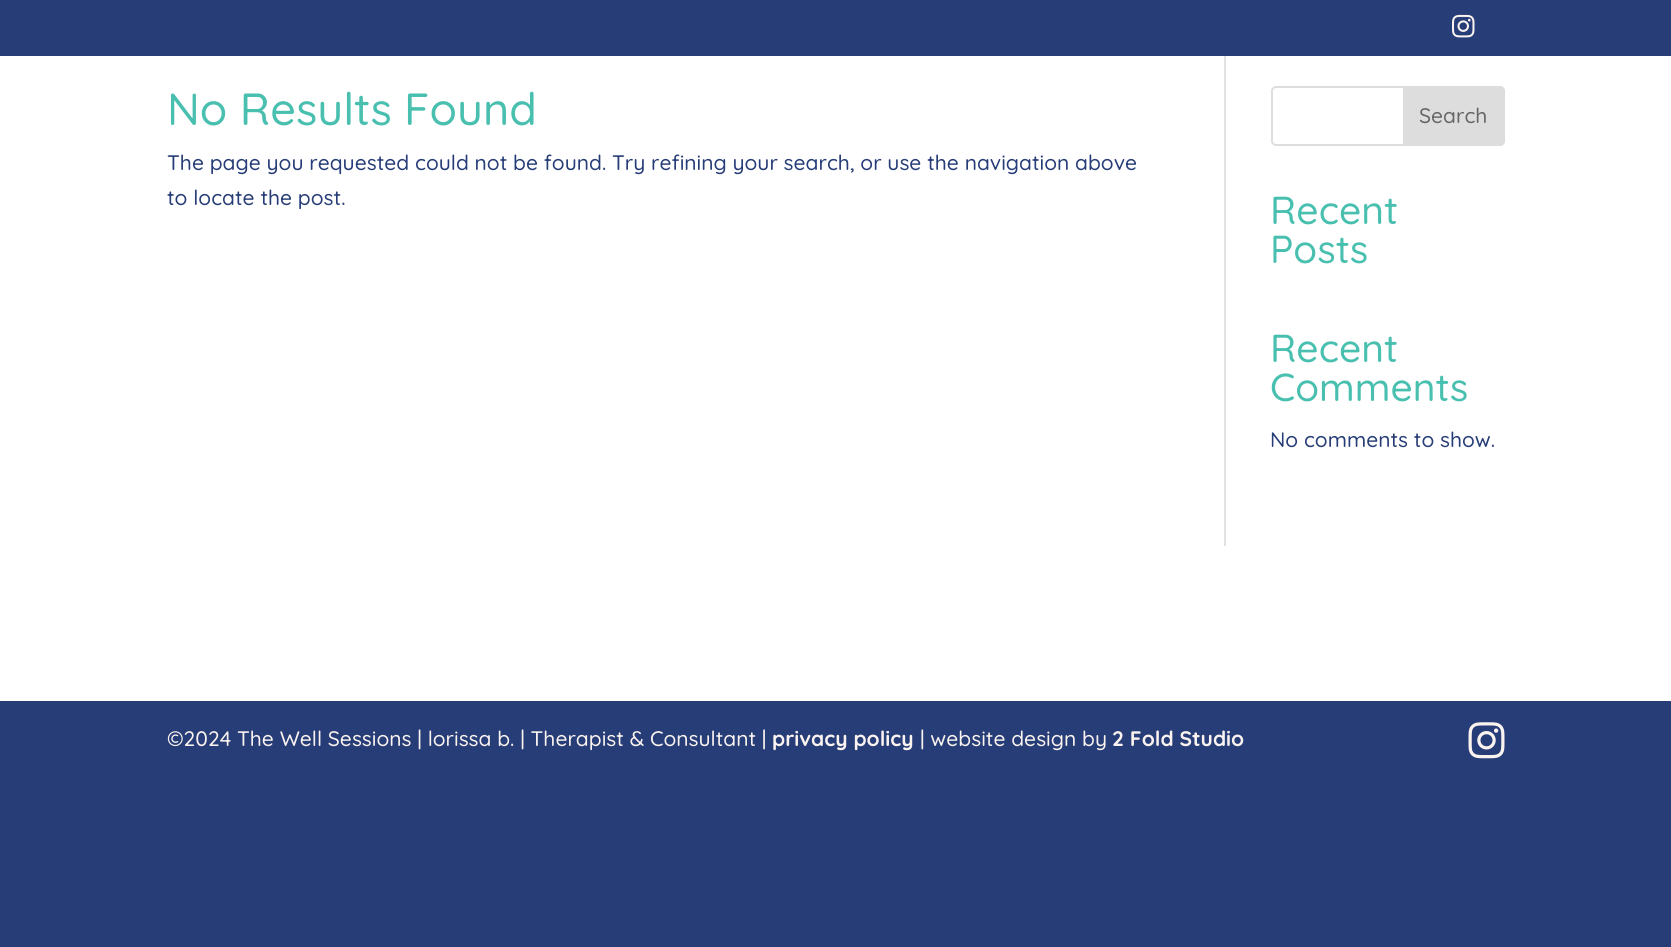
#include <cairo.h>
#include <math.h>
#include <stddef.h>


static void round_rect(cairo_t *cr, double x, double y, double w, double h, double r) {
    cairo_new_sub_path(cr);
    cairo_arc(cr, x + w - r, y + h - r, r, 0, M_PI / 2);
    cairo_arc(cr, x + r, y + h - r, r, M_PI / 2, M_PI);
    cairo_arc(cr, x + r, y + r, r, M_PI, 1.5 * M_PI);
    cairo_arc(cr, x + w - r, y + r, r, 1.5 * M_PI, 2 * M_PI);
    cairo_close_path(cr);
}

static void picture(cairo_t *cr, const char *path, double x, double y, double w, double h) {
    cairo_surface_t *image = cairo_image_surface_create_from_png(path);
    cairo_save(cr);
    cairo_set_source_surface(cr, image, x, y);
    cairo_rectangle(cr, x, y, w, h);
    cairo_fill(cr);
    cairo_restore(cr);
    cairo_surface_destroy(image);
}

int main(void) {
    cairo_surface_t *surface = cairo_image_surface_create(CAIRO_FORMAT_RGB24, 1671, 947);
    cairo_t *cr = cairo_create(surface);
    cairo_font_options_t *options = cairo_font_options_create();
    cairo_font_options_set_hint_metrics(options, CAIRO_HINT_METRICS_OFF);
    cairo_font_options_set_hint_style(options, CAIRO_HINT_STYLE_NONE);
    cairo_set_font_options(cr, options);
    cairo_set_miter_limit(cr, 4);
    cairo_set_source_rgb(cr, 0.153, 0.239, 0.467);
    cairo_paint(cr);
    picture(cr, "img1.png", 1452, 14, 23, 24);
    cairo_set_source_rgb(cr, 1, 1, 1);
    cairo_rectangle(cr, 0, 56, 1671, 645);
    cairo_fill(cr);
    cairo_set_source_rgb(cr, 0.886, 0.886, 0.886);
    cairo_rectangle(cr, 1224, 56, 2, 490);
    cairo_fill(cr);
    cairo_select_font_face(cr, "Quicksand Light", CAIRO_FONT_SLANT_NORMAL, CAIRO_FONT_WEIGHT_NORMAL);
    cairo_set_font_size(cr, 45);
    cairo_set_source_rgb(cr, 0.282, 0.749, 0.686);
    cairo_move_to(cr, 167, 125);
    cairo_show_text(cr, "No Results Found");
    cairo_set_font_size(cr, 21);
    cairo_set_source_rgb(cr, 0.153, 0.239, 0.467);
    cairo_move_to(cr, 167, 170);
    cairo_show_text(cr, "The page you requested could not be found. Try refining your search, or use the navigation above");
    cairo_move_to(cr, 167, 205);
    cairo_show_text(cr, "to locate the post.");
    round_rect(cr, 1272, 87, 232, 58, 4);
    cairo_set_source_rgb(cr, 0.867, 0.867, 0.867);
    cairo_stroke(cr);
    cairo_new_path(cr);
    cairo_move_to(cr, 1404, 87);
    cairo_line_to(cr, 1500, 87);
    cairo_curve_to(cr, 1502, 87, 1504, 89, 1504, 91);
    cairo_line_to(cr, 1504, 141);
    cairo_curve_to(cr, 1504, 143, 1502, 145, 1500, 145);
    cairo_line_to(cr, 1404, 145);
    cairo_close_path(cr);
    cairo_fill_preserve(cr);
    cairo_stroke(cr);
    cairo_set_source_rgb(cr, 0.4, 0.4, 0.4);
    cairo_move_to(cr, 1419, 123);
    cairo_show_text(cr, "Search");
    cairo_set_font_size(cr, 39);
    cairo_set_source_rgb(cr, 0.282, 0.749, 0.686);
    cairo_move_to(cr, 1270, 224);
    cairo_show_text(cr, "Recent");
    cairo_move_to(cr, 1270, 263);
    cairo_show_text(cr, "Posts");
    cairo_move_to(cr, 1270, 362);
    cairo_show_text(cr, "Recent");
    cairo_move_to(cr, 1270, 401);
    cairo_show_text(cr, "Comments");
    cairo_set_font_size(cr, 21);
    cairo_set_source_rgb(cr, 0.153, 0.239, 0.467);
    cairo_move_to(cr, 1270, 447);
    cairo_show_text(cr, "No comments to show.");
    cairo_set_source_rgb(cr, 0.98, 0.953, 0.937);
    cairo_move_to(cr, 167, 746);
    cairo_show_text(cr, "©2024 The Well Sessions | lorissa b. | Therapist & Consultant |");
    cairo_select_font_face(cr, "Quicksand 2 Light", CAIRO_FONT_SLANT_NORMAL, CAIRO_FONT_WEIGHT_NORMAL);
    cairo_move_to(cr, 772, 746);
    cairo_show_text(cr, "privacy policy");
    cairo_select_font_face(cr, "Quicksand Light", CAIRO_FONT_SLANT_NORMAL, CAIRO_FONT_WEIGHT_NORMAL);
    cairo_move_to(cr, 920, 746);
    cairo_show_text(cr, "| website design by");
    cairo_select_font_face(cr, "Quicksand 2 Light", CAIRO_FONT_SLANT_NORMAL, CAIRO_FONT_WEIGHT_NORMAL);
    cairo_move_to(cr, 1112, 746);
    cairo_show_text(cr, "2 Fold Studio");
    picture(cr, "img2.png", 1468, 722, 37, 37);
    cairo_surface_write_to_png(surface, "page.png");
    cairo_font_options_destroy(options);
    cairo_destroy(cr);
    cairo_surface_destroy(surface);
    return 0;
}
